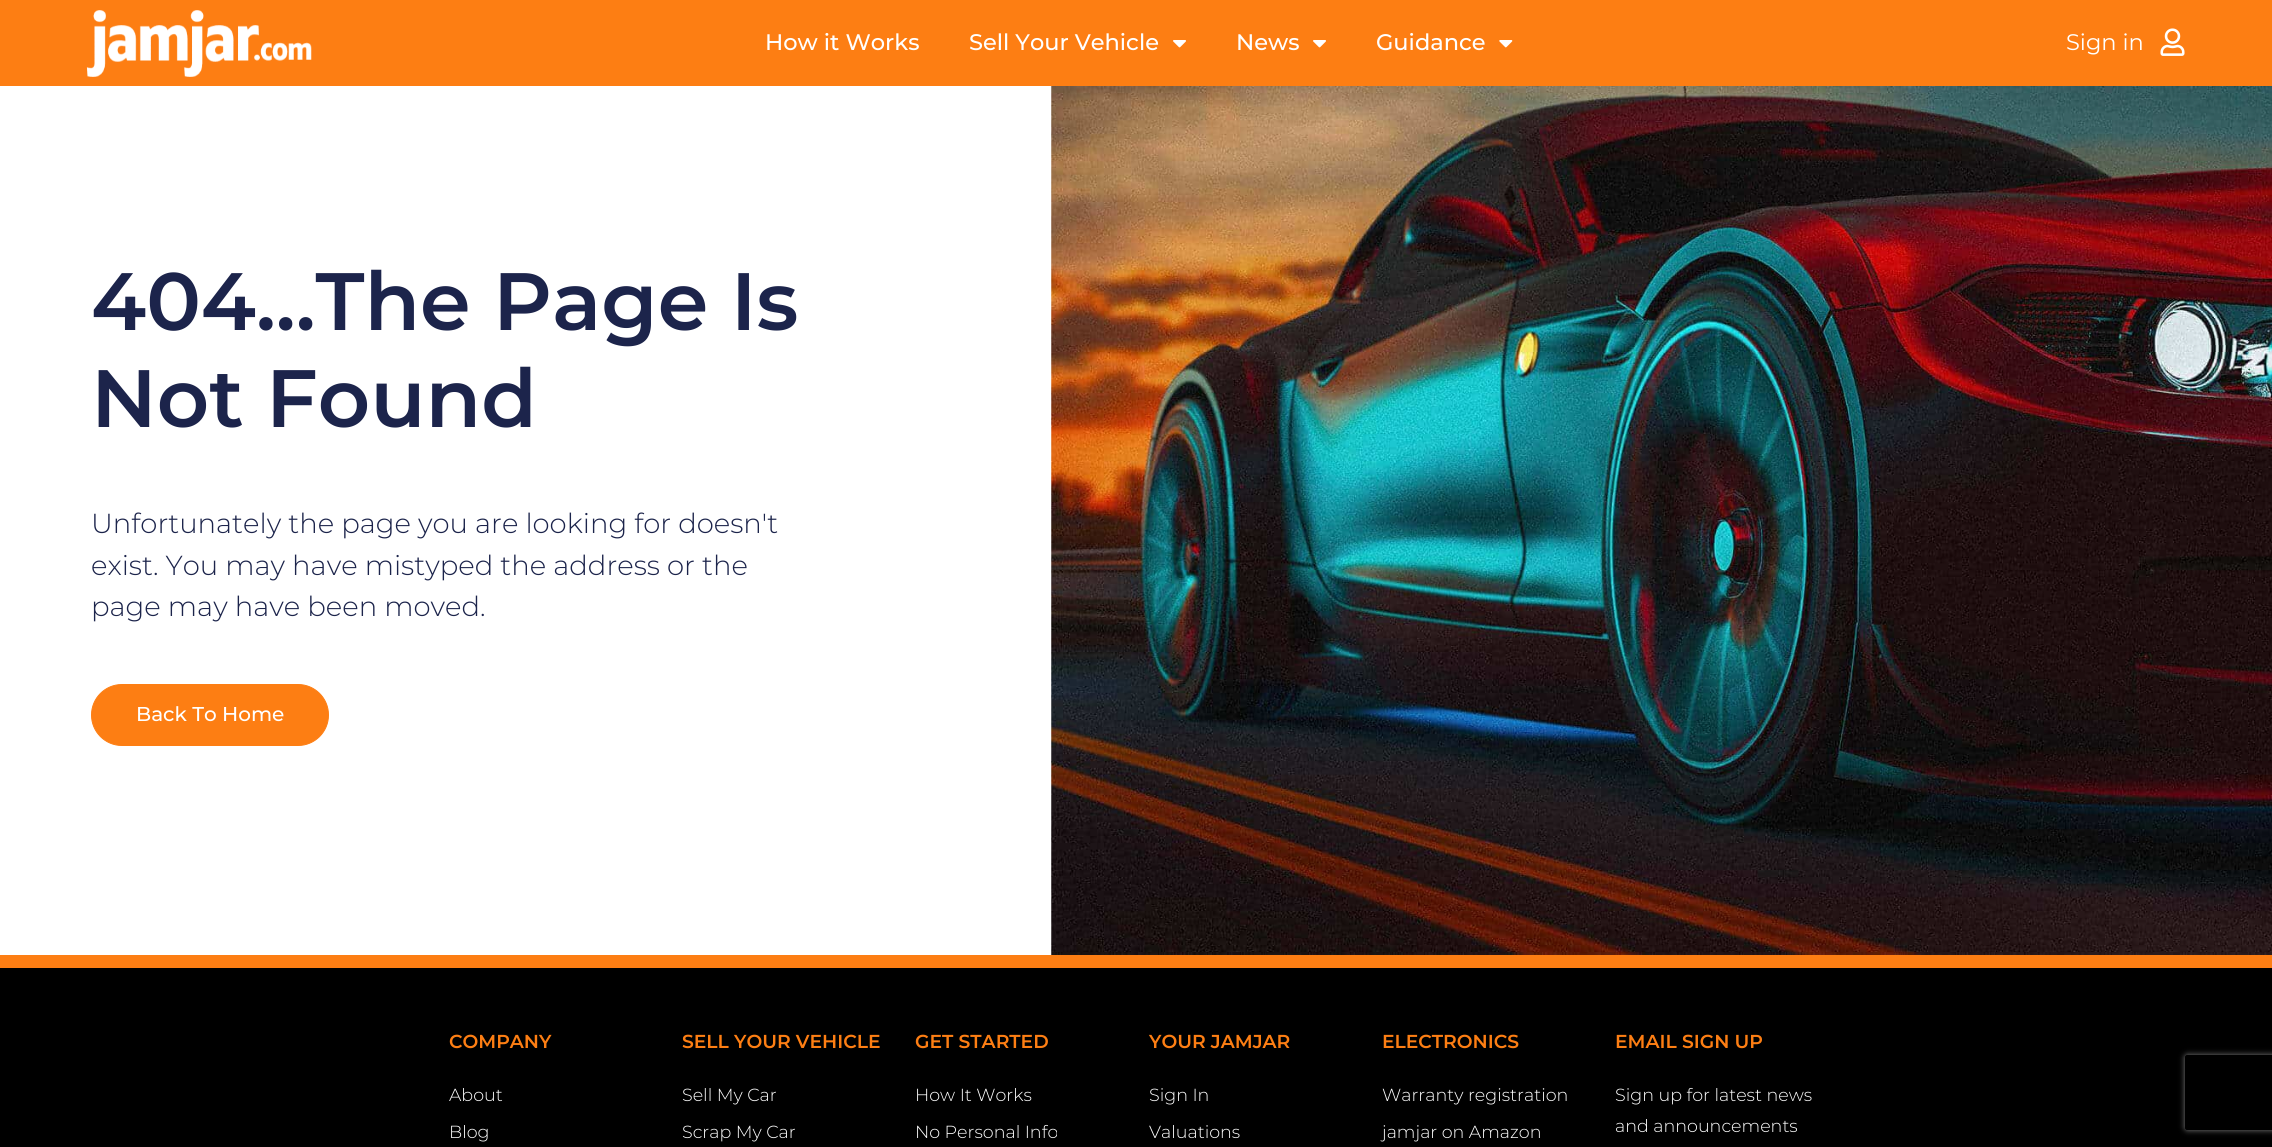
#include <cairo.h>
#include <math.h>
#include <stddef.h>


static void round_rect(cairo_t *cr, double x, double y, double w, double h, double r) {
    cairo_new_sub_path(cr);
    cairo_arc(cr, x + w - r, y + h - r, r, 0, M_PI / 2);
    cairo_arc(cr, x + r, y + h - r, r, M_PI / 2, M_PI);
    cairo_arc(cr, x + r, y + r, r, M_PI, 1.5 * M_PI);
    cairo_arc(cr, x + w - r, y + r, r, 1.5 * M_PI, 2 * M_PI);
    cairo_close_path(cr);
}

static void shadow(cairo_t *cr, double x, double y, double w, double h, double r, double blur, double alpha) {
    cairo_push_group_with_content(cr, CAIRO_CONTENT_ALPHA);
    cairo_set_operator(cr, CAIRO_OPERATOR_SOURCE);
    for (int i = 15; i >= -15 && fmin(w, h) + blur * i / 3 > 0; i -= 2) {
        double e = blur * i / 6;
        cairo_set_source_rgba(cr, 0, 0, 0, alpha * erfc((i - 1) / 8.5) / 2);
        round_rect(cr, x - e, y - e, w + 2 * e, h + 2 * e, fmax(0, fmin(r + e + blur * .6, fmin(w, h) / 2 + e)));
        cairo_fill(cr);
    }
    cairo_pattern_t *soft = cairo_pop_group(cr);
    cairo_mask(cr, soft);
    cairo_pattern_destroy(soft);
}

static void picture(cairo_t *cr, const char *path, double x, double y, double w, double h) {
    cairo_surface_t *image = cairo_image_surface_create_from_png(path);
    cairo_save(cr);
    cairo_set_source_surface(cr, image, x, y);
    cairo_rectangle(cr, x, y, w, h);
    cairo_fill(cr);
    cairo_restore(cr);
    cairo_surface_destroy(image);
}

int main(void) {
    cairo_surface_t *surface = cairo_image_surface_create(CAIRO_FORMAT_RGB24, 2272, 1147);
    cairo_t *cr = cairo_create(surface);
    cairo_font_options_t *options = cairo_font_options_create();
    cairo_font_options_set_hint_metrics(options, CAIRO_HINT_METRICS_OFF);
    cairo_font_options_set_hint_style(options, CAIRO_HINT_STYLE_NONE);
    cairo_set_font_options(cr, options);
    cairo_set_miter_limit(cr, 4);
    cairo_set_source_rgb(cr, 1, 1, 1);
    cairo_paint(cr);
    cairo_set_source_rgb(cr, 0.992, 0.494, 0.078);
    cairo_rectangle(cr, 0, 0, 2272, 86);
    cairo_fill(cr);
    picture(cr, "img1.png", 86, 10, 226, 67);
    cairo_select_font_face(cr, "Montserrat Medium", CAIRO_FONT_SLANT_NORMAL, CAIRO_FONT_WEIGHT_NORMAL);
    cairo_set_font_size(cr, 22.5);
    cairo_set_source_rgb(cr, 1, 1, 1);
    cairo_move_to(cr, 765, 50);
    cairo_show_text(cr, "How it Works");
    cairo_move_to(cr, 969, 50);
    cairo_show_text(cr, "Sell Your Vehicle");
    picture(cr, "img2.png", 1173, 40, 13, 8);
    cairo_move_to(cr, 1236, 50);
    cairo_show_text(cr, "News");
    picture(cr, "img2.png", 1313, 40, 13, 8);
    cairo_move_to(cr, 1376, 50);
    cairo_show_text(cr, "Guidance");
    picture(cr, "img3.png", 1499, 40, 14, 8);
    cairo_select_font_face(cr, "Montserrat", CAIRO_FONT_SLANT_NORMAL, CAIRO_FONT_WEIGHT_NORMAL);
    cairo_move_to(cr, 2066, 50);
    cairo_show_text(cr, "Sign in");
    picture(cr, "img4.png", 2160, 28, 25, 28);
    cairo_select_font_face(cr, "Montserrat SemiBold", CAIRO_FONT_SLANT_NORMAL, CAIRO_FONT_WEIGHT_NORMAL);
    cairo_set_font_size(cr, 81.25);
    cairo_set_source_rgb(cr, 0.11, 0.141, 0.294);
    cairo_move_to(cr, 91, 330);
    cairo_show_text(cr, "404...The Page Is");
    cairo_move_to(cr, 91, 427);
    cairo_show_text(cr, "Not Found");
    cairo_select_font_face(cr, "Montserrat Light", CAIRO_FONT_SLANT_NORMAL, CAIRO_FONT_WEIGHT_NORMAL);
    cairo_set_font_size(cr, 27.5);
    cairo_move_to(cr, 91, 533);
    cairo_show_text(cr, "Unfortunately the page you are looking for doesn't");
    cairo_move_to(cr, 91, 575);
    cairo_show_text(cr, "exist. You may have mistyped the address or the");
    cairo_move_to(cr, 91, 616);
    cairo_show_text(cr, "page may have been moved.");
    cairo_set_source_rgb(cr, 0.992, 0.494, 0.078);
    round_rect(cr, 91.5, 684.5, 237, 61, 30.5);
    cairo_fill_preserve(cr);
    cairo_set_line_width(cr, 1);
    cairo_stroke(cr);
    cairo_select_font_face(cr, "Montserrat Medium", CAIRO_FONT_SLANT_NORMAL, CAIRO_FONT_WEIGHT_NORMAL);
    cairo_set_font_size(cr, 20);
    cairo_set_source_rgb(cr, 1, 1, 1);
    cairo_move_to(cr, 136, 721);
    cairo_show_text(cr, "Back To Home");
    picture(cr, "img5.png", 1051, 86, 1221, 869);
    cairo_set_source_rgb(cr, 0, 0, 0);
    cairo_rectangle(cr, 0, 968, 2272, 179);
    cairo_fill(cr);
    cairo_set_source_rgb(cr, 0.992, 0.494, 0.078);
    cairo_rectangle(cr, 0, 955, 2272, 13);
    cairo_fill(cr);
    cairo_select_font_face(cr, "Montserrat SemiBold", CAIRO_FONT_SLANT_NORMAL, CAIRO_FONT_WEIGHT_NORMAL);
    cairo_set_font_size(cr, 18.75);
    cairo_move_to(cr, 449, 1048);
    cairo_show_text(cr, "COMPANY");
    cairo_select_font_face(cr, "Montserrat Light", CAIRO_FONT_SLANT_NORMAL, CAIRO_FONT_WEIGHT_NORMAL);
    cairo_set_font_size(cr, 17.5);
    cairo_set_source_rgb(cr, 1, 1, 1);
    cairo_move_to(cr, 449, 1101);
    cairo_show_text(cr, "About");
    cairo_move_to(cr, 449, 1138);
    cairo_show_text(cr, "Blog");
    cairo_select_font_face(cr, "Montserrat SemiBold", CAIRO_FONT_SLANT_NORMAL, CAIRO_FONT_WEIGHT_NORMAL);
    cairo_set_font_size(cr, 18.75);
    cairo_set_source_rgb(cr, 0.992, 0.494, 0.078);
    cairo_move_to(cr, 682, 1048);
    cairo_show_text(cr, "SELL YOUR VEHICLE");
    cairo_select_font_face(cr, "Montserrat Light", CAIRO_FONT_SLANT_NORMAL, CAIRO_FONT_WEIGHT_NORMAL);
    cairo_set_font_size(cr, 17.5);
    cairo_set_source_rgb(cr, 1, 1, 1);
    cairo_move_to(cr, 682, 1101);
    cairo_show_text(cr, "Sell My Car");
    cairo_move_to(cr, 682, 1138);
    cairo_show_text(cr, "Scrap My Car");
    cairo_select_font_face(cr, "Montserrat SemiBold", CAIRO_FONT_SLANT_NORMAL, CAIRO_FONT_WEIGHT_NORMAL);
    cairo_set_font_size(cr, 18.75);
    cairo_set_source_rgb(cr, 0.992, 0.494, 0.078);
    cairo_move_to(cr, 915, 1048);
    cairo_show_text(cr, "GET STARTED");
    cairo_select_font_face(cr, "Montserrat Light", CAIRO_FONT_SLANT_NORMAL, CAIRO_FONT_WEIGHT_NORMAL);
    cairo_set_font_size(cr, 17.5);
    cairo_set_source_rgb(cr, 1, 1, 1);
    cairo_move_to(cr, 915, 1101);
    cairo_show_text(cr, "How It Works");
    cairo_move_to(cr, 915, 1138);
    cairo_show_text(cr, "No Personal Info");
    cairo_select_font_face(cr, "Montserrat SemiBold", CAIRO_FONT_SLANT_NORMAL, CAIRO_FONT_WEIGHT_NORMAL);
    cairo_set_font_size(cr, 18.75);
    cairo_set_source_rgb(cr, 0.992, 0.494, 0.078);
    cairo_move_to(cr, 1149, 1048);
    cairo_show_text(cr, "YOUR JAMJAR");
    cairo_select_font_face(cr, "Montserrat Light", CAIRO_FONT_SLANT_NORMAL, CAIRO_FONT_WEIGHT_NORMAL);
    cairo_set_font_size(cr, 17.5);
    cairo_set_source_rgb(cr, 1, 1, 1);
    cairo_move_to(cr, 1149, 1101);
    cairo_show_text(cr, "Sign In");
    cairo_move_to(cr, 1149, 1138);
    cairo_show_text(cr, "Valuations");
    cairo_select_font_face(cr, "Montserrat SemiBold", CAIRO_FONT_SLANT_NORMAL, CAIRO_FONT_WEIGHT_NORMAL);
    cairo_set_font_size(cr, 18.75);
    cairo_set_source_rgb(cr, 0.992, 0.494, 0.078);
    cairo_move_to(cr, 1382, 1048);
    cairo_show_text(cr, "ELECTRONICS");
    cairo_select_font_face(cr, "Montserrat Light", CAIRO_FONT_SLANT_NORMAL, CAIRO_FONT_WEIGHT_NORMAL);
    cairo_set_font_size(cr, 17.5);
    cairo_set_source_rgb(cr, 1, 1, 1);
    cairo_move_to(cr, 1382, 1101);
    cairo_show_text(cr, "Warranty registration");
    cairo_move_to(cr, 1382, 1138);
    cairo_show_text(cr, "jamjar on Amazon");
    cairo_select_font_face(cr, "Montserrat SemiBold", CAIRO_FONT_SLANT_NORMAL, CAIRO_FONT_WEIGHT_NORMAL);
    cairo_set_font_size(cr, 18.75);
    cairo_set_source_rgb(cr, 0.992, 0.494, 0.078);
    cairo_move_to(cr, 1615, 1048);
    cairo_show_text(cr, "EMAIL SIGN UP");
    cairo_select_font_face(cr, "Montserrat Light", CAIRO_FONT_SLANT_NORMAL, CAIRO_FONT_WEIGHT_NORMAL);
    cairo_set_font_size(cr, 17.5);
    cairo_set_source_rgb(cr, 1, 1, 1);
    cairo_move_to(cr, 1615, 1101);
    cairo_show_text(cr, "Sign up for latest news");
    cairo_move_to(cr, 1615, 1132);
    cairo_show_text(cr, "and announcements");
    cairo_save(cr);
    cairo_set_fill_rule(cr, CAIRO_FILL_RULE_EVEN_ODD);
    cairo_new_path(cr);
    cairo_move_to(cr, 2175, 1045);
    cairo_line_to(cr, 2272, 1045);
    cairo_line_to(cr, 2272, 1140);
    cairo_line_to(cr, 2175, 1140);
    cairo_close_path(cr);
    cairo_move_to(cr, 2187.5, 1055);
    cairo_line_to(cr, 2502.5, 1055);
    cairo_curve_to(cr, 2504, 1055, 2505, 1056, 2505, 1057.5);
    cairo_line_to(cr, 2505, 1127.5);
    cairo_curve_to(cr, 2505, 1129, 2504, 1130, 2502.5, 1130);
    cairo_line_to(cr, 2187.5, 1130);
    cairo_curve_to(cr, 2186, 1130, 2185, 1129, 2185, 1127.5);
    cairo_line_to(cr, 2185, 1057.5);
    cairo_curve_to(cr, 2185, 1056, 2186, 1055, 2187.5, 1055);
    cairo_close_path(cr);
    cairo_clip(cr);
    cairo_set_source_rgb(cr, 0.502, 0.502, 0.502);
    shadow(cr, 2185, 1055, 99, 75, 2.5, 3, 1);
    cairo_restore(cr);
    cairo_surface_write_to_png(surface, "page.png");
    cairo_font_options_destroy(options);
    cairo_destroy(cr);
    cairo_surface_destroy(surface);
    return 0;
}
